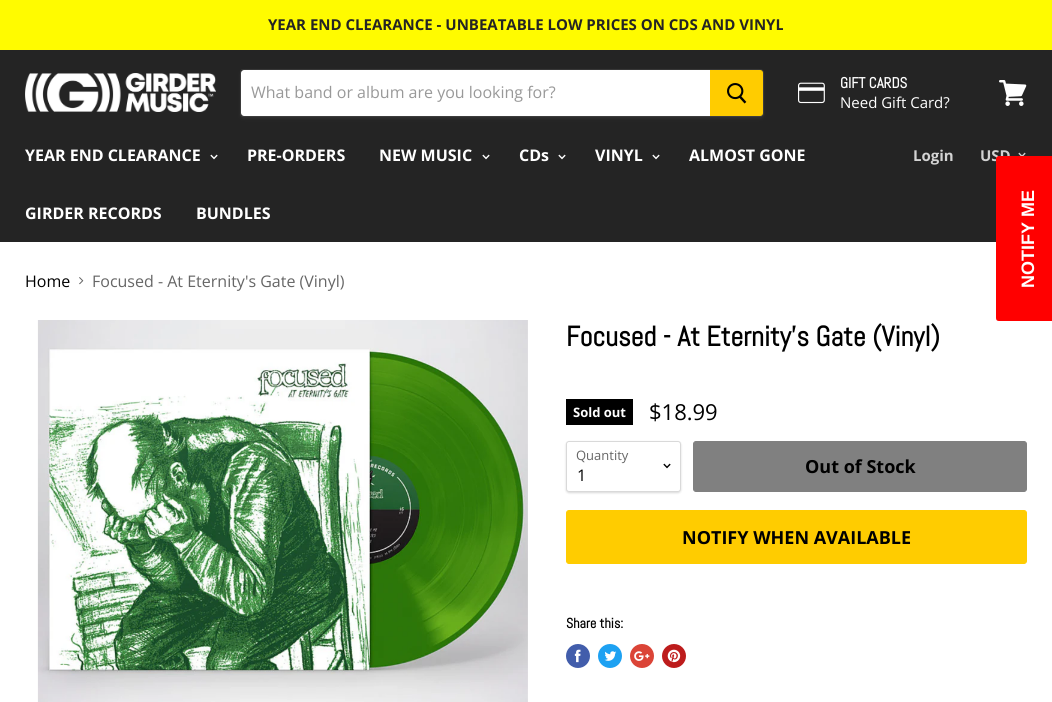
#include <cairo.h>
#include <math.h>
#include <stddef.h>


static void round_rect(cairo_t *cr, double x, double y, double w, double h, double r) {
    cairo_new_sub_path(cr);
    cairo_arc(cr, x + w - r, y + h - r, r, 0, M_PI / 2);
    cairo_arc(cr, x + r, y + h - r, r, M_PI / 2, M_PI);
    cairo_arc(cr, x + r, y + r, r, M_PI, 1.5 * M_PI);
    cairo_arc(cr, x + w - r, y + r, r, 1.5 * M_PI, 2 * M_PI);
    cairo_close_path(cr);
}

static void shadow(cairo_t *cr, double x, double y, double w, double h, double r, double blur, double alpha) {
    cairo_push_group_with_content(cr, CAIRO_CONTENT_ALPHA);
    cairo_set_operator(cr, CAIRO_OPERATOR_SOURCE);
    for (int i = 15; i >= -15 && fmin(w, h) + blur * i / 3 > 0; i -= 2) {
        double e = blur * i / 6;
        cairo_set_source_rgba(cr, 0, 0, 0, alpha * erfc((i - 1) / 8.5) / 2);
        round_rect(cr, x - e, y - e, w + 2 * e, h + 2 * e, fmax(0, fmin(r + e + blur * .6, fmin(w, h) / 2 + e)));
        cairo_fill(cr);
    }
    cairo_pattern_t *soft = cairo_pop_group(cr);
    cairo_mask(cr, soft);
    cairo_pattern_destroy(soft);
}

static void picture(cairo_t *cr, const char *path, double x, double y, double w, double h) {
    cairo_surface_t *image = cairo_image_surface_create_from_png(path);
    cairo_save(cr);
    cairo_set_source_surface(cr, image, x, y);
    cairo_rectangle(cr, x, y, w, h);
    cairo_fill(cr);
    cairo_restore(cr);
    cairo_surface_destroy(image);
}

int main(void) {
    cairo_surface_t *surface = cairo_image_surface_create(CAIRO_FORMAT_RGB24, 1052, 702);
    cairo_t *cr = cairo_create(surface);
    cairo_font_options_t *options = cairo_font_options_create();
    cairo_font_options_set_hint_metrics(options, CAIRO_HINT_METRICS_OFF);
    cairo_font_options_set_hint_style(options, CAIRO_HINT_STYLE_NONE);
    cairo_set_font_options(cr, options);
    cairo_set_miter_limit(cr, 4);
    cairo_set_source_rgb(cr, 1, 1, 1);
    cairo_paint(cr);
    cairo_set_source_rgb(cr, 0.141, 0.141, 0.141);
    cairo_rectangle(cr, 0, 50, 1052, 192);
    cairo_fill(cr);
    cairo_set_source_rgb(cr, 1, 0.984, 0);
    cairo_rectangle(cr, 0, 0, 1052, 50);
    cairo_fill(cr);
    cairo_select_font_face(cr, "Open Sans", CAIRO_FONT_SLANT_NORMAL, CAIRO_FONT_WEIGHT_BOLD);
    cairo_set_font_size(cr, 15);
    cairo_set_source_rgb(cr, 0.141, 0.141, 0.141);
    cairo_move_to(cr, 268, 30);
    cairo_show_text(cr, "YEAR END CLEARANCE - UNBEATABLE LOW PRICES ON CDS AND VINYL");
    picture(cr, "img1.png", 25, 73, 191, 39);
    cairo_set_source_rgb(cr, 0.498, 0.498, 0.498);
    shadow(cr, 240, 71, 524, 48, 4, 1.5, 0.11);
    cairo_new_path(cr);
    cairo_move_to(cr, 243, 69.5);
    cairo_line_to(cr, 760, 69.5);
    cairo_curve_to(cr, 762, 69.5, 763.5, 71, 763.5, 73);
    cairo_line_to(cr, 763.5, 113);
    cairo_curve_to(cr, 763.5, 115, 762, 116.5, 760, 116.5);
    cairo_line_to(cr, 243, 116.5);
    cairo_curve_to(cr, 241.5, 116.5, 240.5, 115.5, 240.5, 114);
    cairo_line_to(cr, 240.5, 72);
    cairo_curve_to(cr, 240.5, 70.5, 241.5, 69.5, 243, 69.5);
    cairo_close_path(cr);
    cairo_set_source_rgba(cr, 0.498, 0.498, 0.498, 0.2);
    cairo_set_line_width(cr, 1);
    cairo_stroke(cr);
    cairo_set_source_rgb(cr, 1, 1, 1);
    cairo_new_path(cr);
    cairo_move_to(cr, 244, 70);
    cairo_line_to(cr, 710, 70);
    cairo_line_to(cr, 710, 116);
    cairo_line_to(cr, 244, 116);
    cairo_curve_to(cr, 242.5, 116, 241, 114.5, 241, 113);
    cairo_line_to(cr, 241, 73);
    cairo_curve_to(cr, 241, 71.5, 242.5, 70, 244, 70);
    cairo_close_path(cr);
    cairo_fill(cr);
    cairo_select_font_face(cr, "Open Sans", CAIRO_FONT_SLANT_NORMAL, CAIRO_FONT_WEIGHT_NORMAL);
    cairo_set_font_size(cr, 16);
    cairo_set_source_rgb(cr, 0.6, 0.6, 0.6);
    cairo_move_to(cr, 251, 98);
    cairo_show_text(cr, "What band or album are you looking for?");
    cairo_set_source_rgb(cr, 1, 0.8, 0);
    cairo_new_path(cr);
    cairo_move_to(cr, 710.5, 70.5);
    cairo_line_to(cr, 760, 70.5);
    cairo_curve_to(cr, 761.5, 70.5, 762.5, 71.5, 762.5, 73);
    cairo_line_to(cr, 762.5, 113);
    cairo_curve_to(cr, 762.5, 114.5, 761.5, 115.5, 760, 115.5);
    cairo_line_to(cr, 710.5, 115.5);
    cairo_close_path(cr);
    cairo_fill_preserve(cr);
    cairo_stroke(cr);
    picture(cr, "img2.png", 727, 83, 20, 21);
    picture(cr, "img3.png", 798, 82, 27, 22);
    cairo_select_font_face(cr, "Abel", CAIRO_FONT_SLANT_NORMAL, CAIRO_FONT_WEIGHT_BOLD);
    cairo_set_font_size(cr, 15);
    cairo_set_source_rgb(cr, 1, 1, 1);
    cairo_move_to(cr, 840, 88);
    cairo_show_text(cr, "GIFT CARDS");
    cairo_select_font_face(cr, "Open Sans", CAIRO_FONT_SLANT_NORMAL, CAIRO_FONT_WEIGHT_NORMAL);
    cairo_move_to(cr, 840, 108);
    cairo_show_text(cr, "Need Gift Card?");
    picture(cr, "img4.png", 999, 80, 28, 26);
    cairo_select_font_face(cr, "Open Sans", CAIRO_FONT_SLANT_NORMAL, CAIRO_FONT_WEIGHT_BOLD);
    cairo_set_font_size(cr, 16);
    cairo_move_to(cr, 25, 161);
    cairo_show_text(cr, "YEAR END CLEARANCE");
    picture(cr, "img5.png", 210, 154, 8, 6);
    cairo_move_to(cr, 247, 161);
    cairo_show_text(cr, "PRE-ORDERS");
    cairo_move_to(cr, 379, 161);
    cairo_show_text(cr, "NEW MUSIC");
    picture(cr, "img5.png", 482, 154, 8, 6);
    cairo_move_to(cr, 519, 161);
    cairo_show_text(cr, "CDs");
    picture(cr, "img5.png", 558, 154, 8, 6);
    cairo_move_to(cr, 595, 161);
    cairo_show_text(cr, "VINYL");
    picture(cr, "img5.png", 652, 154, 8, 6);
    cairo_move_to(cr, 689, 161);
    cairo_show_text(cr, "ALMOST GONE");
    cairo_move_to(cr, 25, 219);
    cairo_show_text(cr, "GIRDER RECORDS");
    cairo_move_to(cr, 196, 219);
    cairo_show_text(cr, "BUNDLES");
    cairo_set_font_size(cr, 15);
    cairo_set_source_rgb(cr, 0.827, 0.827, 0.827);
    cairo_move_to(cr, 913, 161);
    cairo_show_text(cr, "Login");
    cairo_move_to(cr, 980, 161);
    cairo_show_text(cr, "USD");
    picture(cr, "img6.png", 1018, 152, 8, 4);
    cairo_set_source_rgb(cr, 1, 0, 0);
    cairo_new_path(cr);
    cairo_move_to(cr, 996, 318);
    cairo_line_to(cr, 996, 159);
    cairo_curve_to(cr, 996, 158, 997, 156, 999, 156);
    cairo_line_to(cr, 1052, 156);
    cairo_line_to(cr, 1052, 321);
    cairo_line_to(cr, 999, 321);
    cairo_curve_to(cr, 997, 321, 996, 320, 996, 318);
    cairo_close_path(cr);
    cairo_fill(cr);
    cairo_select_font_face(cr, "Liberation Sans", CAIRO_FONT_SLANT_NORMAL, CAIRO_FONT_WEIGHT_BOLD);
    cairo_set_font_size(cr, 18);
    cairo_set_source_rgb(cr, 1, 1, 1);
    cairo_save(cr);
    cairo_translate(cr, 1034, 288);
    cairo_rotate(cr, -90 * M_PI / 180);
    cairo_move_to(cr, 0, 0);
    cairo_show_text(cr, "NOTIFY ME");
    cairo_restore(cr);
    cairo_select_font_face(cr, "Open Sans", CAIRO_FONT_SLANT_NORMAL, CAIRO_FONT_WEIGHT_NORMAL);
    cairo_set_font_size(cr, 16);
    cairo_set_source_rgb(cr, 0, 0, 0);
    cairo_move_to(cr, 25, 287);
    cairo_show_text(cr, "Home");
    picture(cr, "img7.png", 79, 277, 5, 8);
    cairo_set_source_rgb(cr, 0.4, 0.4, 0.4);
    cairo_move_to(cr, 92, 287);
    cairo_show_text(cr, "Focused - At Eternity's Gate (Vinyl)");
    picture(cr, "img8.png", 37, 320, 491, 382);
    cairo_select_font_face(cr, "Abel", CAIRO_FONT_SLANT_NORMAL, CAIRO_FONT_WEIGHT_BOLD);
    cairo_set_font_size(cr, 28);
    cairo_set_source_rgb(cr, 0, 0, 0);
    cairo_move_to(cr, 566, 346);
    cairo_show_text(cr, "Focused - At Eternity's Gate (Vinyl)");
    cairo_rectangle(cr, 566, 399, 67, 26);
    cairo_fill(cr);
    cairo_select_font_face(cr, "Open Sans", CAIRO_FONT_SLANT_NORMAL, CAIRO_FONT_WEIGHT_BOLD);
    cairo_set_font_size(cr, 13);
    cairo_set_source_rgb(cr, 1, 1, 1);
    cairo_move_to(cr, 573, 417);
    cairo_show_text(cr, "Sold out");
    cairo_select_font_face(cr, "Open Sans", CAIRO_FONT_SLANT_NORMAL, CAIRO_FONT_WEIGHT_NORMAL);
    cairo_set_font_size(cr, 22);
    cairo_set_source_rgb(cr, 0, 0, 0);
    cairo_move_to(cr, 649, 420);
    cairo_show_text(cr, "$18.99");
    cairo_save(cr);
    cairo_set_fill_rule(cr, CAIRO_FILL_RULE_EVEN_ODD);
    cairo_new_path(cr);
    cairo_move_to(cr, 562, 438);
    cairo_line_to(cr, 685, 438);
    cairo_line_to(cr, 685, 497);
    cairo_line_to(cr, 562, 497);
    cairo_close_path(cr);
    cairo_move_to(cr, 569, 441);
    cairo_line_to(cr, 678, 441);
    cairo_curve_to(cr, 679.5, 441, 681, 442.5, 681, 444);
    cairo_line_to(cr, 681, 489);
    cairo_curve_to(cr, 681, 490.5, 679.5, 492, 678, 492);
    cairo_line_to(cr, 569, 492);
    cairo_curve_to(cr, 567.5, 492, 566, 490.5, 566, 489);
    cairo_line_to(cr, 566, 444);
    cairo_curve_to(cr, 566, 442.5, 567.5, 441, 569, 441);
    cairo_close_path(cr);
    cairo_clip(cr);
    cairo_set_source_rgb(cr, 0, 0, 0);
    shadow(cr, 566, 442, 115, 51, 3, 1, 0.15);
    cairo_restore(cr);
    round_rect(cr, 566.5, 441.5, 114, 50, 2.5);
    cairo_set_source_rgba(cr, 0.498, 0.498, 0.498, 0.3);
    cairo_stroke(cr);
    cairo_set_font_size(cr, 13);
    cairo_set_source_rgb(cr, 0.4, 0.4, 0.4);
    cairo_move_to(cr, 576, 460);
    cairo_show_text(cr, "Quantity");
    picture(cr, "img9.png", 663, 463, 8, 6);
    cairo_set_font_size(cr, 16);
    cairo_set_source_rgb(cr, 0, 0, 0);
    cairo_move_to(cr, 577, 481);
    cairo_show_text(cr, "1");
    cairo_set_source_rgb(cr, 0.502, 0.502, 0.502);
    round_rect(cr, 693.5, 441.5, 333, 50, 2.5);
    cairo_fill_preserve(cr);
    cairo_stroke(cr);
    cairo_select_font_face(cr, "Open Sans", CAIRO_FONT_SLANT_NORMAL, CAIRO_FONT_WEIGHT_BOLD);
    cairo_set_font_size(cr, 18);
    cairo_set_source_rgb(cr, 0, 0, 0);
    cairo_move_to(cr, 805, 473);
    cairo_show_text(cr, "Out of Stock");
    cairo_set_source_rgb(cr, 1, 0.8, 0);
    round_rect(cr, 566.5, 510.5, 460, 53, 2.5);
    cairo_fill_preserve(cr);
    cairo_stroke(cr);
    cairo_set_source_rgb(cr, 0, 0, 0);
    cairo_move_to(cr, 682, 544);
    cairo_show_text(cr, "NOTIFY WHEN AVAILABLE");
    cairo_select_font_face(cr, "Abel", CAIRO_FONT_SLANT_NORMAL, CAIRO_FONT_WEIGHT_BOLD);
    cairo_set_font_size(cr, 14);
    cairo_move_to(cr, 566, 628);
    cairo_show_text(cr, "Share this:");
    cairo_set_source_rgb(cr, 0.259, 0.365, 0.671);
    cairo_new_path(cr);
    cairo_arc(cr, 578, 656, 12, 0, 2 * M_PI);
    cairo_fill(cr);
    picture(cr, "img10.png", 574, 649, 7, 14);
    cairo_set_source_rgb(cr, 0.114, 0.631, 0.949);
    cairo_arc(cr, 610, 656, 12, 0, 2 * M_PI);
    cairo_fill(cr);
    picture(cr, "img11.png", 604, 651, 13, 10);
    cairo_set_source_rgb(cr, 0.859, 0.267, 0.216);
    cairo_arc(cr, 642, 656, 12, 0, 2 * M_PI);
    cairo_fill(cr);
    picture(cr, "img12.png", 634, 651, 16, 10);
    cairo_set_source_rgb(cr, 0.741, 0.11, 0.11);
    cairo_arc(cr, 674, 656, 12, 0, 2 * M_PI);
    cairo_fill(cr);
    picture(cr, "img13.png", 667, 649, 14, 14);
    cairo_surface_write_to_png(surface, "page.png");
    cairo_font_options_destroy(options);
    cairo_destroy(cr);
    cairo_surface_destroy(surface);
    return 0;
}
